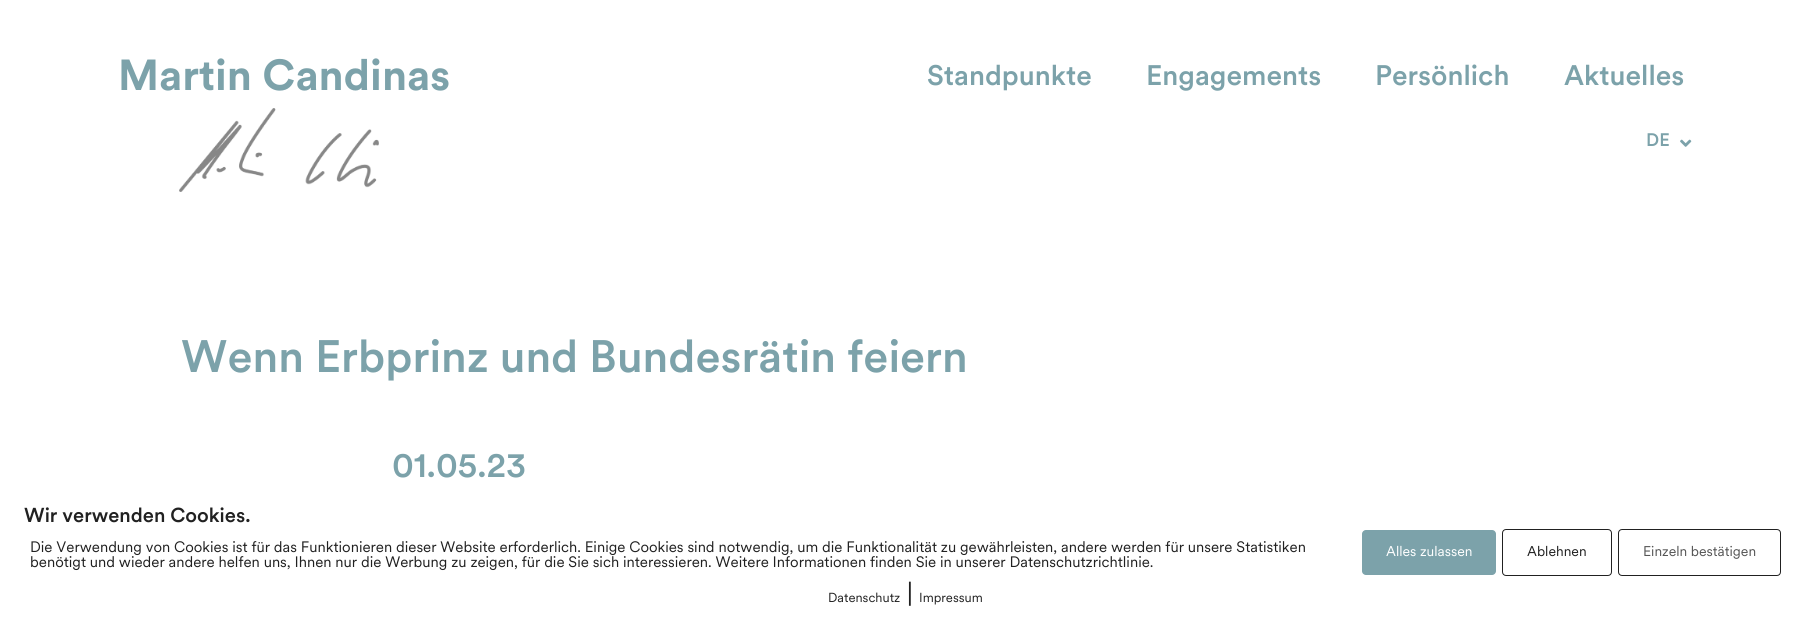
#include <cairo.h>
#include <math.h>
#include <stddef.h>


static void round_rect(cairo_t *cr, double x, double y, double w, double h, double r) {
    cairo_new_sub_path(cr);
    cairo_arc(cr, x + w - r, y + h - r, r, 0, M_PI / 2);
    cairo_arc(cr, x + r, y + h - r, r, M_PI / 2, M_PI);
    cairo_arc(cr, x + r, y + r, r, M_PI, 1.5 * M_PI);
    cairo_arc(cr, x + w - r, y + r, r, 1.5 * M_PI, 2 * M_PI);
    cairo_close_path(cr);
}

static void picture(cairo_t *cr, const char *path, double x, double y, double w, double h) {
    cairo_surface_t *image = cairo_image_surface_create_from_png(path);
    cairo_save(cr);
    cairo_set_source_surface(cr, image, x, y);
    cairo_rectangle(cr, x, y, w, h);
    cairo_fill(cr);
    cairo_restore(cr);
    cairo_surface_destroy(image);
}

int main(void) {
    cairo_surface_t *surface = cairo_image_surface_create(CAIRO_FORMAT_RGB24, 1811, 639);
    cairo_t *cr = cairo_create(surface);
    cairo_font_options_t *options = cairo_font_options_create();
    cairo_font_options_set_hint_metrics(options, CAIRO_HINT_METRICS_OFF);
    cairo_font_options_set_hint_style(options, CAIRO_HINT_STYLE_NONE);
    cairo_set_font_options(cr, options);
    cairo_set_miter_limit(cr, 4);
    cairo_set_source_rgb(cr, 1, 1, 1);
    cairo_paint(cr);
    cairo_select_font_face(cr, "Circular", CAIRO_FONT_SLANT_NORMAL, CAIRO_FONT_WEIGHT_BOLD);
    cairo_set_font_size(cr, 43);
    cairo_set_source_rgb(cr, 0.486, 0.635, 0.667);
    cairo_move_to(cr, 118, 90);
    cairo_show_text(cr, "Martin Candinas");
    picture(cr, "img1.png", 179, 108, 200, 84);
    cairo_select_font_face(cr, "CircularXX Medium", CAIRO_FONT_SLANT_NORMAL, CAIRO_FONT_WEIGHT_NORMAL);
    cairo_set_font_size(cr, 28);
    cairo_move_to(cr, 927, 85);
    cairo_show_text(cr, "Standpunkte");
    cairo_move_to(cr, 1146, 85);
    cairo_show_text(cr, "Engagements");
    cairo_move_to(cr, 1375, 85);
    cairo_show_text(cr, "Persönlich");
    cairo_move_to(cr, 1564, 85);
    cairo_show_text(cr, "Aktuelles");
    cairo_set_font_size(cr, 18);
    cairo_move_to(cr, 1646, 146);
    cairo_show_text(cr, "DE");
    picture(cr, "img2.png", 1680, 139, 12, 8);
    cairo_set_font_size(cr, 45);
    cairo_move_to(cr, 181, 372);
    cairo_show_text(cr, "Wenn Erbprinz und Bundesrätin feiern");
    cairo_set_font_size(cr, 35);
    cairo_move_to(cr, 392, 477);
    cairo_show_text(cr, "01.05.23");
    cairo_set_font_size(cr, 20);
    cairo_set_source_rgb(cr, 0.129, 0.129, 0.129);
    cairo_move_to(cr, 24, 522);
    cairo_show_text(cr, "Wir verwenden Cookies.");
    cairo_select_font_face(cr, "CircularXX", CAIRO_FONT_SLANT_NORMAL, CAIRO_FONT_WEIGHT_NORMAL);
    cairo_set_font_size(cr, 15);
    cairo_move_to(cr, 30, 552);
    cairo_show_text(cr, "Die Verwendung von Cookies ist für das Funktionieren dieser Website erforderlich. Einige Cookies sind notwendig, um die Funktionalität zu gewährleisten, andere werden für unsere Statistiken");
    cairo_move_to(cr, 30, 567);
    cairo_show_text(cr, "benötigt und wieder andere helfen uns, Ihnen nur die Werbung zu zeigen, für die Sie sich interessieren. Weitere Informationen finden Sie in unserer Datenschutzrichtlinie.");
    cairo_set_source_rgb(cr, 0.486, 0.635, 0.667);
    round_rect(cr, 1362, 530, 134, 45, 4);
    cairo_fill(cr);
    cairo_set_font_size(cr, 14);
    cairo_set_source_rgb(cr, 1, 1, 1);
    cairo_move_to(cr, 1386, 556);
    cairo_show_text(cr, "Alles zulassen");
    round_rect(cr, 1502.5, 529.5, 109, 46, 3.5);
    cairo_set_source_rgb(cr, 0.129, 0.129, 0.129);
    cairo_set_line_width(cr, 1);
    cairo_stroke(cr);
    cairo_move_to(cr, 1527, 556);
    cairo_show_text(cr, "Ablehnen");
    round_rect(cr, 1618.5, 529.5, 162, 46, 3.5);
    cairo_stroke(cr);
    cairo_set_source_rgb(cr, 0.333, 0.333, 0.333);
    cairo_move_to(cr, 1643, 556);
    cairo_show_text(cr, "Einzeln bestätigen");
    cairo_set_font_size(cr, 13);
    cairo_set_source_rgb(cr, 0.129, 0.129, 0.129);
    cairo_move_to(cr, 828, 602);
    cairo_show_text(cr, "Datenschutz");
    cairo_set_font_size(cr, 26);
    cairo_move_to(cr, 907, 602);
    cairo_show_text(cr, "|");
    cairo_set_font_size(cr, 13);
    cairo_move_to(cr, 919, 602);
    cairo_show_text(cr, "Impressum");
    cairo_surface_write_to_png(surface, "page.png");
    cairo_font_options_destroy(options);
    cairo_destroy(cr);
    cairo_surface_destroy(surface);
    return 0;
}
